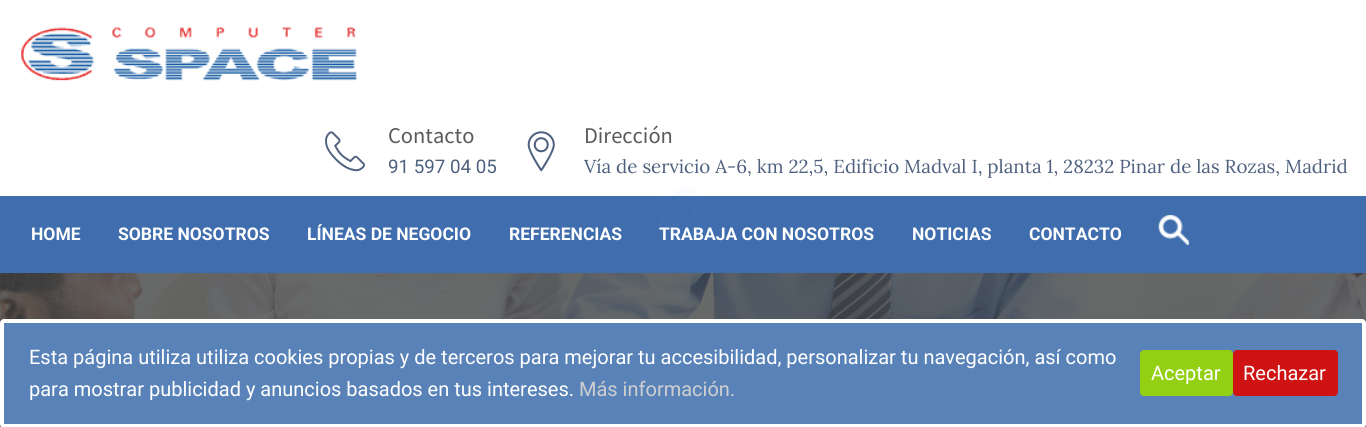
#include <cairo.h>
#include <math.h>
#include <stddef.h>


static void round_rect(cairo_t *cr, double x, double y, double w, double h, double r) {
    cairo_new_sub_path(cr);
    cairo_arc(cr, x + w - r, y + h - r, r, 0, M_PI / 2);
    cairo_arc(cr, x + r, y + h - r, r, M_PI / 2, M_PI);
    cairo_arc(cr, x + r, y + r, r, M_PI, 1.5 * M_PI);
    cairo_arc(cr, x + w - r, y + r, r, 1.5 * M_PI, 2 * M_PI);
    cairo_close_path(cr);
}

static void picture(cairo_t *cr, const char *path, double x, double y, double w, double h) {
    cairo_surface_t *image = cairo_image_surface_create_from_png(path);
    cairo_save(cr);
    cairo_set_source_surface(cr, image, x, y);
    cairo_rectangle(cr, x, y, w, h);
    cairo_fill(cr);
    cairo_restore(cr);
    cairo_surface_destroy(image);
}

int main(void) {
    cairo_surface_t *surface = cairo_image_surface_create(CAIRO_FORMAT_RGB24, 1366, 427);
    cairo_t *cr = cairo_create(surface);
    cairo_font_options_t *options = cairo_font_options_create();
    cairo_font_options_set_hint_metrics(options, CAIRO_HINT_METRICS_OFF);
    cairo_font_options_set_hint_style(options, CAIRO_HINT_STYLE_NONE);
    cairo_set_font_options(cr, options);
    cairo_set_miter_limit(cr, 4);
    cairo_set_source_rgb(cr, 1, 1, 1);
    cairo_paint(cr);
    picture(cr, "img1.png", 21, 27, 336, 54);
    picture(cr, "img2.png", 325, 131, 40, 41);
    cairo_select_font_face(cr, "Source Sans Pro", CAIRO_FONT_SLANT_NORMAL, CAIRO_FONT_WEIGHT_NORMAL);
    cairo_set_font_size(cr, 22.5);
    cairo_set_source_rgb(cr, 0.353, 0.353, 0.353);
    cairo_move_to(cr, 388, 143);
    cairo_show_text(cr, "Contacto");
    cairo_select_font_face(cr, "Roboto", CAIRO_FONT_SLANT_NORMAL, CAIRO_FONT_WEIGHT_NORMAL);
    cairo_set_font_size(cr, 18.75);
    cairo_set_source_rgb(cr, 0.31, 0.38, 0.494);
    cairo_move_to(cr, 388, 173);
    cairo_show_text(cr, "91 597 04 05");
    picture(cr, "img3.png", 527, 131, 28, 41);
    cairo_select_font_face(cr, "Source Sans Pro", CAIRO_FONT_SLANT_NORMAL, CAIRO_FONT_WEIGHT_NORMAL);
    cairo_set_font_size(cr, 22.5);
    cairo_set_source_rgb(cr, 0.353, 0.353, 0.353);
    cairo_move_to(cr, 584, 143);
    cairo_show_text(cr, "Dirección");
    cairo_select_font_face(cr, "Lora", CAIRO_FONT_SLANT_NORMAL, CAIRO_FONT_WEIGHT_NORMAL);
    cairo_set_font_size(cr, 18.75);
    cairo_set_source_rgb(cr, 0.31, 0.38, 0.494);
    cairo_move_to(cr, 584, 173);
    cairo_show_text(cr, "Vía de servicio A-6, km 22,5, Edificio Madval I, planta 1, 28232 Pinar de las Rozas, Madrid");
    cairo_set_source_rgb(cr, 0.247, 0.427, 0.682);
    cairo_rectangle(cr, 0, 196, 1366, 77);
    cairo_fill(cr);
    cairo_select_font_face(cr, "Roboto", CAIRO_FONT_SLANT_NORMAL, CAIRO_FONT_WEIGHT_BOLD);
    cairo_set_font_size(cr, 17.5);
    cairo_set_source_rgb(cr, 1, 1, 1);
    cairo_move_to(cr, 31, 240);
    cairo_show_text(cr, "HOME");
    cairo_move_to(cr, 118, 240);
    cairo_show_text(cr, "SOBRE NOSOTROS");
    cairo_move_to(cr, 307, 240);
    cairo_show_text(cr, "LÍNEAS DE NEGOCIO");
    cairo_move_to(cr, 509, 240);
    cairo_show_text(cr, "REFERENCIAS");
    cairo_move_to(cr, 659, 240);
    cairo_show_text(cr, "TRABAJA CON NOSOTROS");
    cairo_move_to(cr, 912, 240);
    cairo_show_text(cr, "NOTICIAS");
    cairo_move_to(cr, 1029, 240);
    cairo_show_text(cr, "CONTACTO");
    picture(cr, "img4.png", 1158, 215, 31, 30);
    picture(cr, "img5.png", 658, 188, 52, 52);
    picture(cr, "img6.png", 0, 273, 1366, 154);
    cairo_set_source_rgb(cr, 0.349, 0.514, 0.722);
    round_rect(cr, 2, 321, 1362, 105, 2);
    cairo_fill_preserve(cr);
    cairo_set_source_rgb(cr, 1, 1, 1);
    cairo_set_line_width(cr, 4);
    cairo_stroke(cr);
    cairo_select_font_face(cr, "Roboto", CAIRO_FONT_SLANT_NORMAL, CAIRO_FONT_WEIGHT_NORMAL);
    cairo_set_font_size(cr, 20);
    cairo_move_to(cr, 29, 364);
    cairo_show_text(cr, "Esta página utiliza utiliza cookies propias y de terceros para mejorar tu accesibilidad, personalizar tu navegación, así como");
    cairo_move_to(cr, 29, 396);
    cairo_show_text(cr, "para mostrar publicidad y anuncios basados en tus intereses.");
    cairo_set_source_rgb(cr, 0.812, 0.812, 0.812);
    cairo_move_to(cr, 579, 396);
    cairo_show_text(cr, "Más información.");
    cairo_set_source_rgb(cr, 0.576, 0.812, 0.078);
    round_rect(cr, 1140, 350, 93, 46, 4);
    cairo_fill(cr);
    cairo_set_source_rgb(cr, 1, 1, 1);
    cairo_move_to(cr, 1151, 380);
    cairo_show_text(cr, "Aceptar");
    cairo_set_source_rgb(cr, 0.812, 0.078, 0.078);
    round_rect(cr, 1233, 350, 105, 46, 4);
    cairo_fill(cr);
    cairo_set_source_rgb(cr, 1, 1, 1);
    cairo_move_to(cr, 1243, 380);
    cairo_show_text(cr, "Rechazar");
    cairo_surface_write_to_png(surface, "page.png");
    cairo_font_options_destroy(options);
    cairo_destroy(cr);
    cairo_surface_destroy(surface);
    return 0;
}
